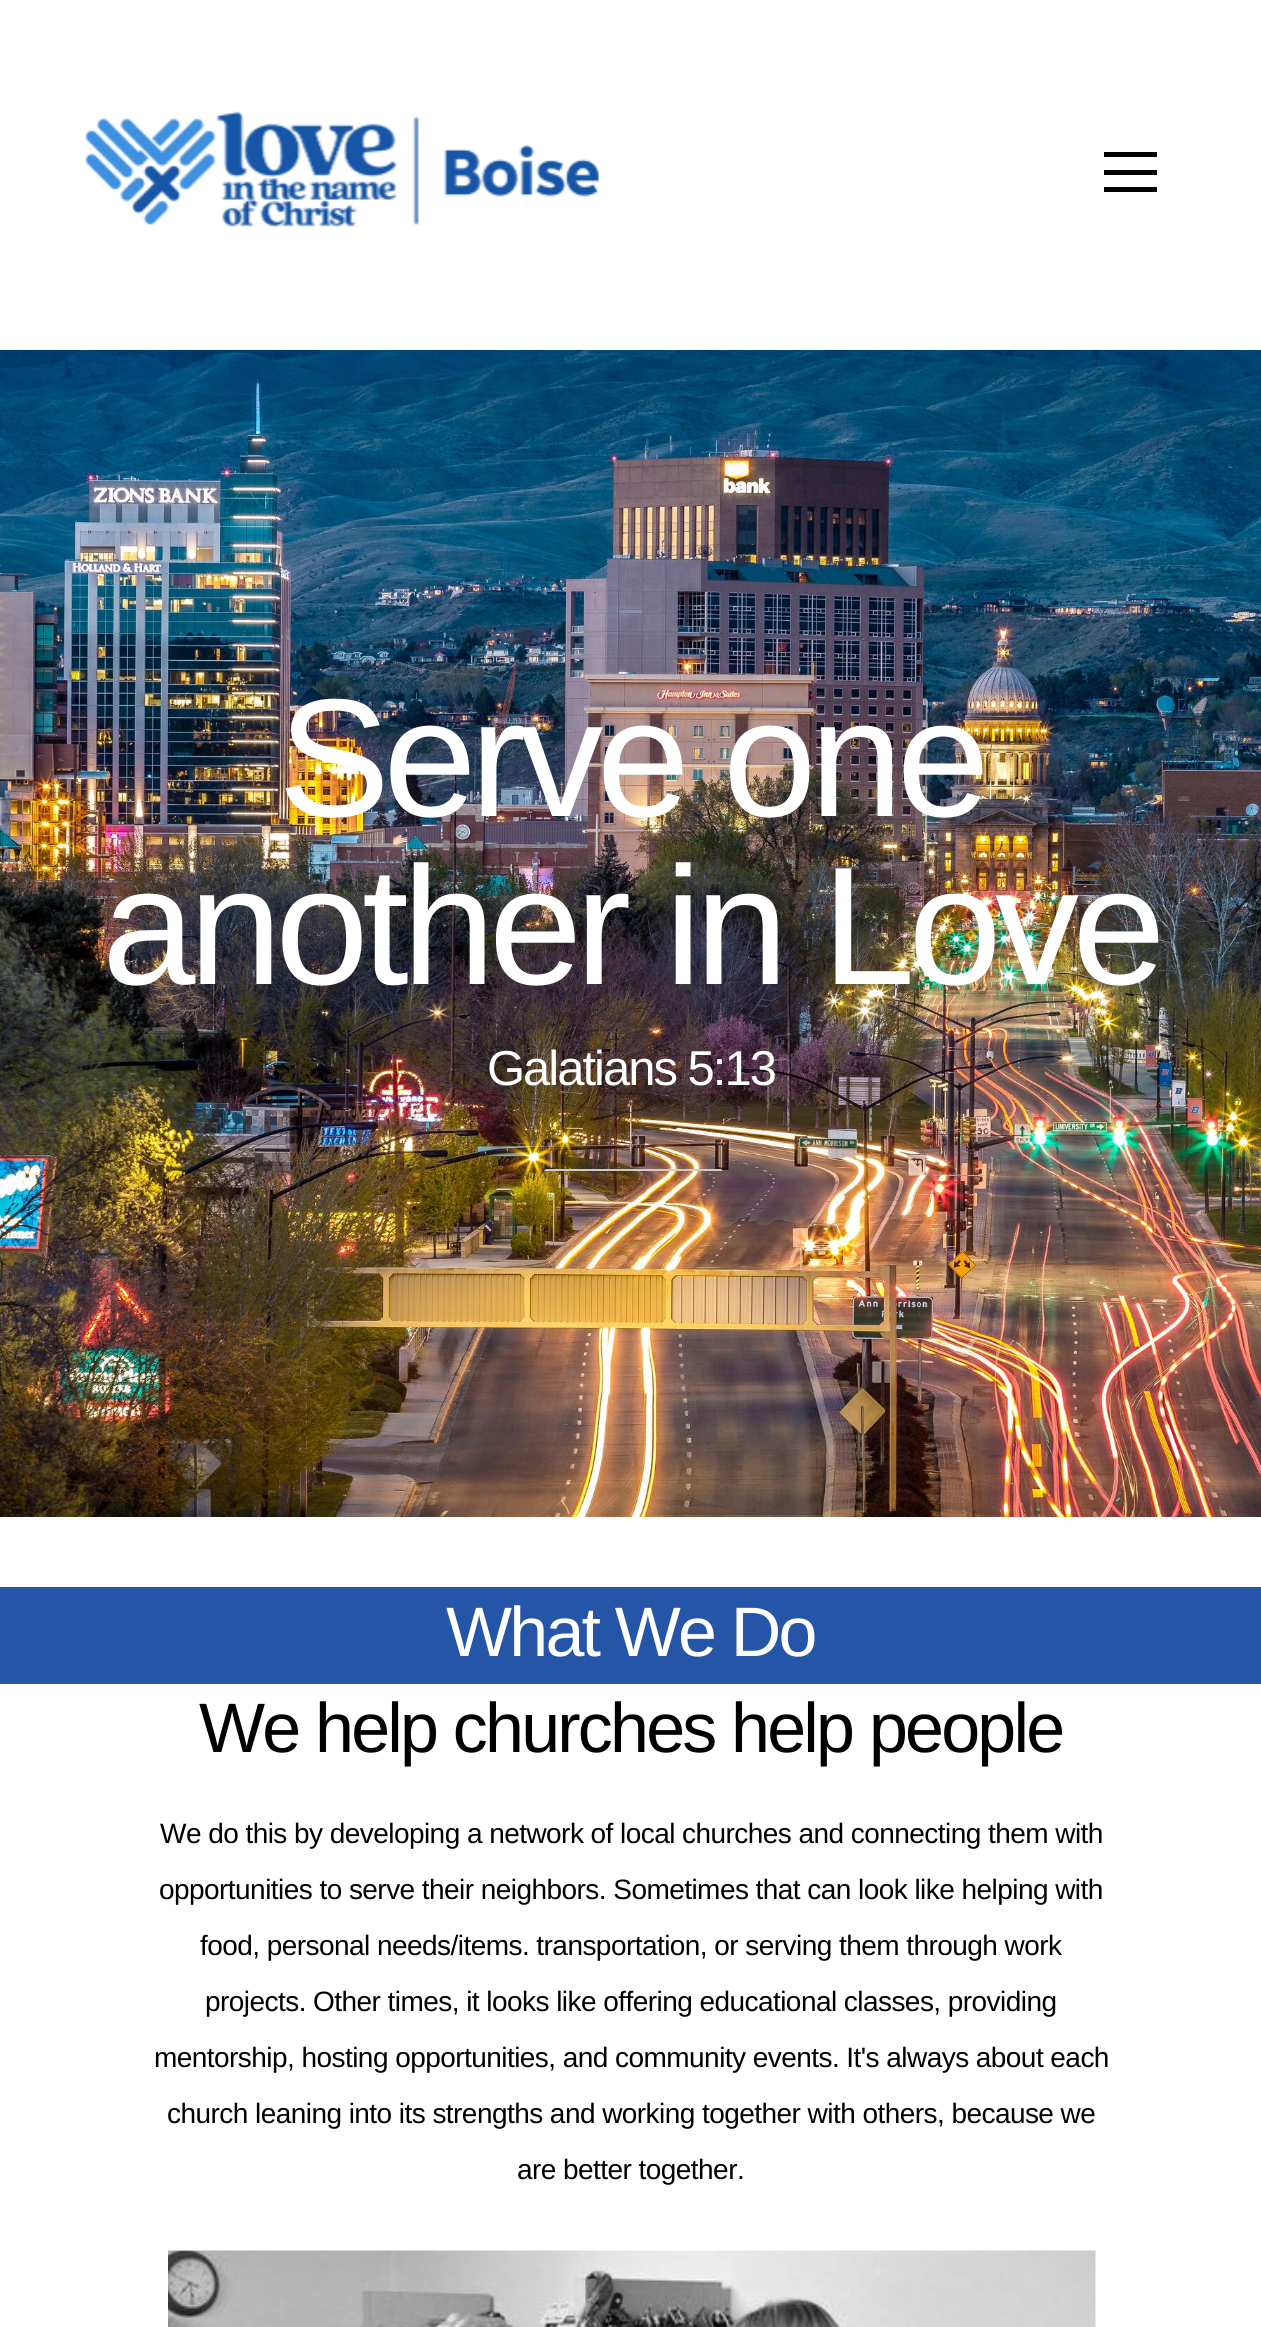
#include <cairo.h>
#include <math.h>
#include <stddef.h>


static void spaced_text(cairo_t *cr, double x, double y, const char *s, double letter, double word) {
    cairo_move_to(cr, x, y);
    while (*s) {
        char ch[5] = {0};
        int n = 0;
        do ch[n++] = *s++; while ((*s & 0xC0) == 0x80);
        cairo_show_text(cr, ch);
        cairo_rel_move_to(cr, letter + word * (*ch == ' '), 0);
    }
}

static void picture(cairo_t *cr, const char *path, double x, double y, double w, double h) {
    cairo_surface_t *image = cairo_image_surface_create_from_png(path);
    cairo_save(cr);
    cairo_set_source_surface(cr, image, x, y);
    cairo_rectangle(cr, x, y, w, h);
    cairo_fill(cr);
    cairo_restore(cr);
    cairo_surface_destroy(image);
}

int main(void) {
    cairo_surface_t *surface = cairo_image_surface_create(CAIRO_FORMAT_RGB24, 1261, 2327);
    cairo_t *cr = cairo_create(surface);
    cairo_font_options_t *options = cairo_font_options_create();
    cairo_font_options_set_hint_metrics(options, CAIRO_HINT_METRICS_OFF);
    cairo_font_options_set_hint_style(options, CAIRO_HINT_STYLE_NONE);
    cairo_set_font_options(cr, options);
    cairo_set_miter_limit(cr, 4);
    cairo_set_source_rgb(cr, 1, 1, 1);
    cairo_paint(cr);
    picture(cr, "img1.png", 85, 111, 516, 116);
    cairo_set_source_rgb(cr, 0, 0, 0);
    cairo_rectangle(cr, 1104, 152, 53, 5);
    cairo_fill(cr);
    cairo_rectangle(cr, 1104, 170, 53, 5);
    cairo_fill(cr);
    cairo_rectangle(cr, 1104, 187, 53, 5);
    cairo_fill(cr);
    picture(cr, "img2.png", 0, 350, 1261, 1167);
    cairo_select_font_face(cr, "Liberation Sans", CAIRO_FONT_SLANT_NORMAL, CAIRO_FONT_WEIGHT_NORMAL);
    cairo_set_font_size(cr, 168);
    cairo_set_source_rgb(cr, 1, 1, 1);
    spaced_text(cr, 278, 816, "Serve one", -6.75, 0);
    spaced_text(cr, 102, 984, "another in Love", -6.75, 0);
    cairo_set_font_size(cr, 49);
    spaced_text(cr, 487, 1085, "Galatians 5:13", -2, 0);
    cairo_set_source_rgb(cr, 0.8, 0.8, 0.8);
    cairo_new_path(cr);
    cairo_move_to(cr, 723, 1171);
    cairo_line_to(cr, 544, 1171);
    cairo_line_to(cr, 546, 1169);
    cairo_line_to(cr, 721, 1169);
    cairo_close_path(cr);
    cairo_fill(cr);
    cairo_set_source_rgb(cr, 0.141, 0.333, 0.655);
    cairo_rectangle(cr, 0, 1587, 1261, 97);
    cairo_fill(cr);
    cairo_set_font_size(cr, 70);
    cairo_set_source_rgb(cr, 1, 1, 1);
    spaced_text(cr, 446, 1656, "What We Do", -2.8, 0);
    cairo_set_source_rgb(cr, 0, 0, 0);
    spaced_text(cr, 199, 1752, "We help churches help people", -2.8, 0);
    cairo_set_font_size(cr, 28);
    spaced_text(cr, 160, 1843, "We do this by developing a network of local churches and connecting them with", -0.55, 0);
    spaced_text(cr, 159, 1899, "opportunities to serve their neighbors. Sometimes that can look like helping with", -0.55, 0);
    spaced_text(cr, 200, 1955, "food, personal needs/items. transportation, or serving them through work", -0.55, 0);
    spaced_text(cr, 205, 2011, "projects. Other times, it looks like offering educational classes, providing", -0.55, 0);
    spaced_text(cr, 154, 2067, "mentorship, hosting opportunities, and community events. It's always about each", -0.55, 0);
    spaced_text(cr, 167, 2123, "church leaning into its strengths and working together with others, because we", -0.55, 0);
    spaced_text(cr, 517, 2179, "are better together.", -0.55, 0);
    picture(cr, "img3.png", 168, 2250, 928, 77);
    cairo_surface_write_to_png(surface, "page.png");
    cairo_font_options_destroy(options);
    cairo_destroy(cr);
    cairo_surface_destroy(surface);
    return 0;
}
